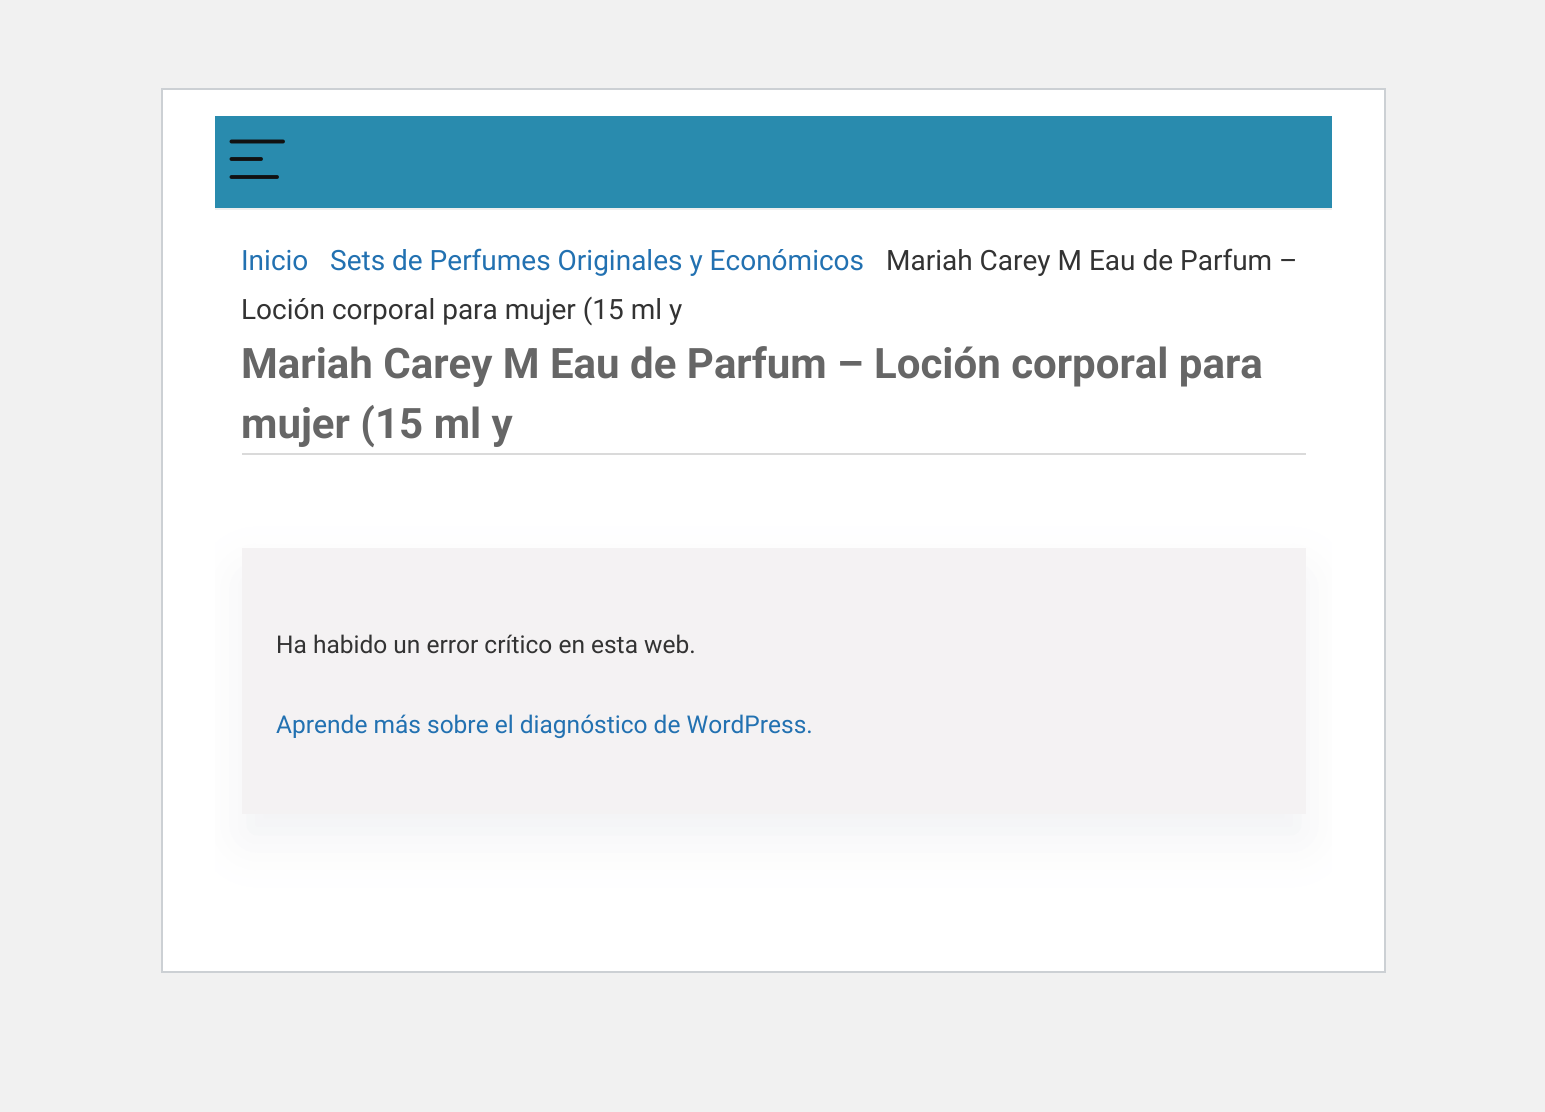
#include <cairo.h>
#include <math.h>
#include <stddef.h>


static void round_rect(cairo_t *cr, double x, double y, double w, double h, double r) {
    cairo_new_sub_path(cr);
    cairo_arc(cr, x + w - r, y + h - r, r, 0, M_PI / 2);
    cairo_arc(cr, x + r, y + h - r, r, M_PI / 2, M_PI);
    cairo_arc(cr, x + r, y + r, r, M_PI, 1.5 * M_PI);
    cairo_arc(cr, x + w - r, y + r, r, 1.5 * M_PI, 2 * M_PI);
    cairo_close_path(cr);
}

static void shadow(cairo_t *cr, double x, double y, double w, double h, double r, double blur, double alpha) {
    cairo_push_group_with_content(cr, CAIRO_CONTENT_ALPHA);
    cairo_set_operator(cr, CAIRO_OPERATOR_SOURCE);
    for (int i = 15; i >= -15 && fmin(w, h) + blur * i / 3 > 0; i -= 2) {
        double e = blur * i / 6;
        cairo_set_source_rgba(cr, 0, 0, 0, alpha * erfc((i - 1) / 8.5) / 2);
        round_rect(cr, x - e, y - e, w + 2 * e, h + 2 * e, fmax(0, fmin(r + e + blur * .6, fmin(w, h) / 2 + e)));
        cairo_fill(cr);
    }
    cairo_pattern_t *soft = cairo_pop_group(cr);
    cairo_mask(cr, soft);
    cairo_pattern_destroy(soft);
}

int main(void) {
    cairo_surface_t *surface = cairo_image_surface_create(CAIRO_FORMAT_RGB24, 1545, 1112);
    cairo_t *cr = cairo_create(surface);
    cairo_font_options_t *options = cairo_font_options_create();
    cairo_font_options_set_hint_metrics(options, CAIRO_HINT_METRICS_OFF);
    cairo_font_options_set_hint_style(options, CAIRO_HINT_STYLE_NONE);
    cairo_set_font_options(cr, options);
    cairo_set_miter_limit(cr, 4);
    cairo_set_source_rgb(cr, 0.945, 0.945, 0.945);
    cairo_paint(cr);
    cairo_set_source_rgb(cr, 1, 1, 1);
    cairo_rectangle(cr, 162, 89, 1223, 883);
    cairo_fill_preserve(cr);
    cairo_set_source_rgb(cr, 0.8, 0.816, 0.831);
    cairo_stroke(cr);
    cairo_set_source_rgb(cr, 0.161, 0.545, 0.682);
    cairo_rectangle(cr, 215, 116, 1117, 92);
    cairo_fill(cr);
    cairo_set_source_rgb(cr, 0.933, 0.933, 0.933);
    cairo_rectangle(cr, 215, 208, 1117, 2);
    cairo_fill(cr);
    cairo_new_path(cr);
    cairo_move_to(cr, 231.5, 141.5);
    cairo_line_to(cr, 283, 141.5);
    cairo_move_to(cr, 231.5, 159);
    cairo_line_to(cr, 261, 159);
    cairo_move_to(cr, 231.5, 177);
    cairo_line_to(cr, 277, 177);
    cairo_set_source_rgb(cr, 0.067, 0.067, 0.067);
    cairo_set_line_width(cr, 3.9);
    cairo_set_line_cap(cr, CAIRO_LINE_CAP_ROUND);
    cairo_stroke(cr);
    cairo_select_font_face(cr, "Roboto", CAIRO_FONT_SLANT_NORMAL, CAIRO_FONT_WEIGHT_NORMAL);
    cairo_set_font_size(cr, 28);
    cairo_set_source_rgb(cr, 0.133, 0.443, 0.694);
    cairo_move_to(cr, 241, 270);
    cairo_show_text(cr, "Inicio");
    cairo_move_to(cr, 330, 270);
    cairo_show_text(cr, "Sets de Perfumes Originales y Económicos");
    cairo_set_source_rgb(cr, 0.2, 0.2, 0.2);
    cairo_move_to(cr, 886, 270);
    cairo_show_text(cr, "Mariah Carey M Eau de Parfum –");
    cairo_move_to(cr, 241, 319);
    cairo_show_text(cr, "Loción corporal para mujer (15 ml y");
    cairo_set_source_rgb(cr, 0.855, 0.855, 0.855);
    cairo_rectangle(cr, 242, 453, 1064, 2);
    cairo_fill(cr);
    cairo_select_font_face(cr, "Roboto", CAIRO_FONT_SLANT_NORMAL, CAIRO_FONT_WEIGHT_BOLD);
    cairo_set_font_size(cr, 42);
    cairo_set_source_rgb(cr, 0.4, 0.4, 0.4);
    cairo_move_to(cr, 241, 378);
    cairo_show_text(cr, "Mariah Carey M Eau de Parfum – Loción corporal para");
    cairo_move_to(cr, 241, 438);
    cairo_show_text(cr, "mujer (15 ml y");
    cairo_save(cr);
    cairo_rectangle(cr, 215, 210, 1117, 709);
    cairo_clip(cr);
    cairo_set_source_rgb(cr, 0.467, 0.482, 0.573);
    shadow(cr, 242, 574, 1064, 266, 0, 26, 0.1);
    cairo_restore(cr);
    cairo_set_source_rgb(cr, 0.957, 0.949, 0.953);
    cairo_rectangle(cr, 242, 548, 1064, 266);
    cairo_fill(cr);
    cairo_select_font_face(cr, "Roboto", CAIRO_FONT_SLANT_NORMAL, CAIRO_FONT_WEIGHT_NORMAL);
    cairo_set_font_size(cr, 24.5);
    cairo_set_source_rgb(cr, 0.2, 0.2, 0.2);
    cairo_move_to(cr, 276, 653);
    cairo_show_text(cr, "Ha habido un error crítico en esta web.");
    cairo_set_source_rgb(cr, 0.133, 0.443, 0.694);
    cairo_move_to(cr, 276, 733);
    cairo_show_text(cr, "Aprende más sobre el diagnóstico de WordPress.");
    cairo_surface_write_to_png(surface, "page.png");
    cairo_font_options_destroy(options);
    cairo_destroy(cr);
    cairo_surface_destroy(surface);
    return 0;
}
